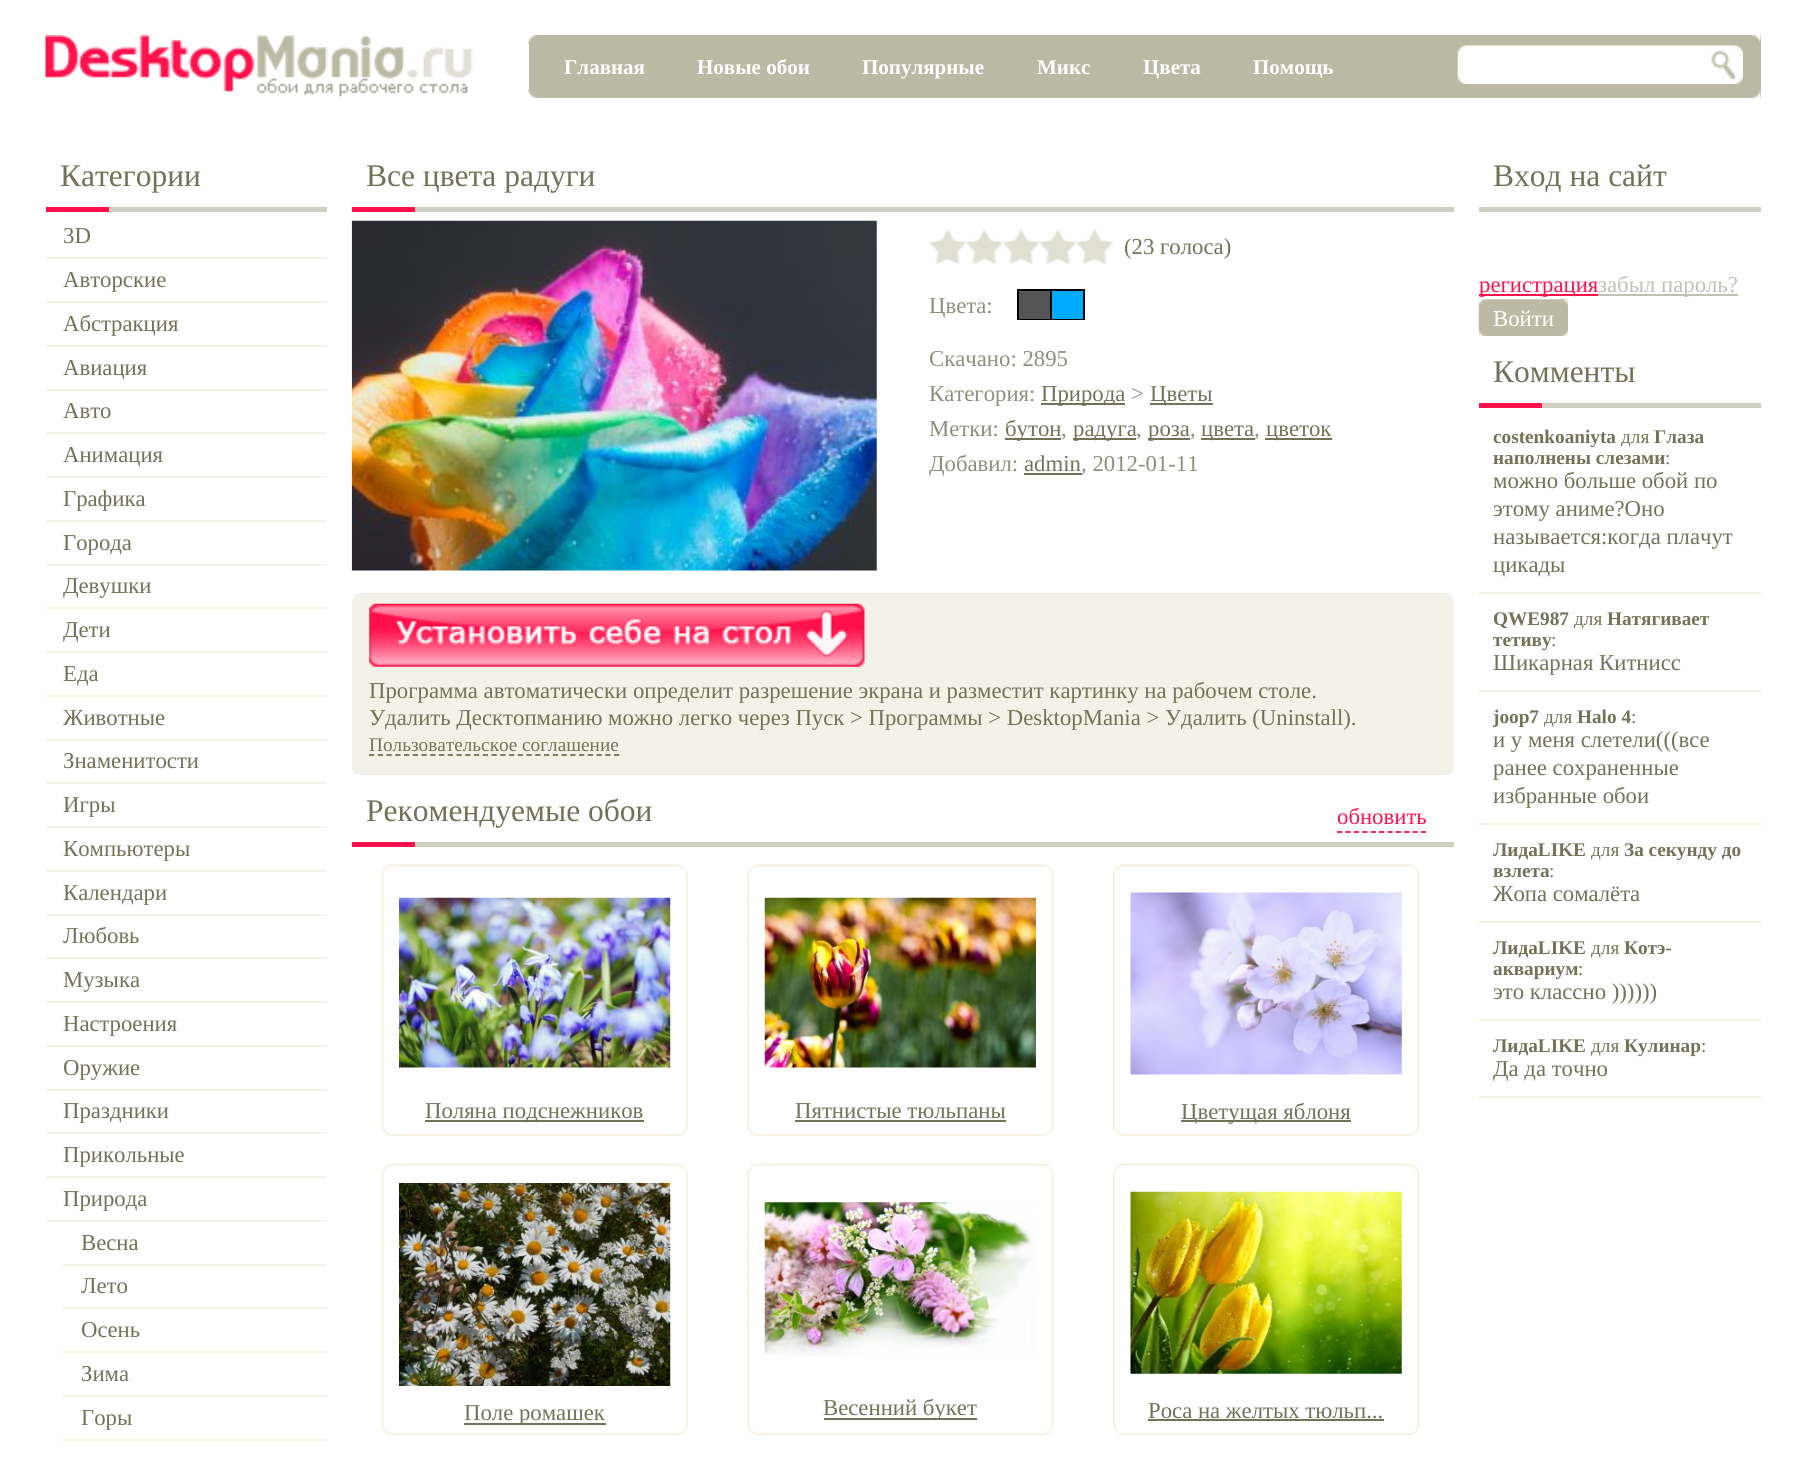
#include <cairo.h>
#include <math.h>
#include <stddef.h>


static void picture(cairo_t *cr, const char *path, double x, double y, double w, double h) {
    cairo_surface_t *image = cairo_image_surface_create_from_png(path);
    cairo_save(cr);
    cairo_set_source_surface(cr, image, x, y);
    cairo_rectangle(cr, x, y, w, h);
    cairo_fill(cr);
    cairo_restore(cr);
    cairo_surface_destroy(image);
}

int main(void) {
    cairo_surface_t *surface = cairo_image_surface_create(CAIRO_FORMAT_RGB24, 1805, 1458);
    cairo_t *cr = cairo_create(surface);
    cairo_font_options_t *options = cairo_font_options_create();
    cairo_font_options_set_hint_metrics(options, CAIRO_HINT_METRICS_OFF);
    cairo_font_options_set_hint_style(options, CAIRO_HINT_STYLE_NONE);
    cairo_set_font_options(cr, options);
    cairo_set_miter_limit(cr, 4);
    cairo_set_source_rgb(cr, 1, 1, 1);
    cairo_paint(cr);
    picture(cr, "img1.png", 45, 35, 428, 62);
    cairo_set_source_rgb(cr, 0.729, 0.729, 0.643);
    cairo_rectangle(cr, 529, 35, 1232, 63);
    cairo_fill(cr);
    picture(cr, "img2.png", 528, 35, 9, 9);
    picture(cr, "img3.png", 1752, 35, 9, 8);
    cairo_select_font_face(cr, "Liberation Serif", CAIRO_FONT_SLANT_NORMAL, CAIRO_FONT_WEIGHT_BOLD);
    cairo_set_font_size(cr, 21);
    cairo_set_source_rgb(cr, 1, 1, 1);
    cairo_move_to(cr, 564, 74);
    cairo_show_text(cr, "Главная");
    cairo_move_to(cr, 697, 74);
    cairo_show_text(cr, "Новые обои");
    cairo_move_to(cr, 862, 74);
    cairo_show_text(cr, "Популярные");
    cairo_move_to(cr, 1037, 74);
    cairo_show_text(cr, "Микс");
    cairo_move_to(cr, 1143, 74);
    cairo_show_text(cr, "Цвета");
    cairo_move_to(cr, 1253, 74);
    cairo_show_text(cr, "Помощь");
    picture(cr, "img4.png", 1457, 45, 286, 39);
    cairo_rectangle(cr, 1471, 55, 147, 19);
    cairo_fill(cr);
    picture(cr, "img5.png", 528, 89, 9, 9);
    picture(cr, "img6.png", 1752, 90, 9, 8);
    cairo_set_source_rgb(cr, 0.816, 0.816, 0.753);
    cairo_rectangle(cr, 109, 207, 218, 5);
    cairo_fill(cr);
    cairo_select_font_face(cr, "Liberation Serif", CAIRO_FONT_SLANT_NORMAL, CAIRO_FONT_WEIGHT_NORMAL);
    cairo_set_font_size(cr, 31.5);
    cairo_set_source_rgb(cr, 0.447, 0.447, 0.345);
    cairo_move_to(cr, 60, 186);
    cairo_show_text(cr, "Категории");
    cairo_set_source_rgb(cr, 1, 0.067, 0.302);
    cairo_rectangle(cr, 46, 207, 63, 5);
    cairo_fill(cr);
    cairo_set_source_rgb(cr, 0.953, 0.953, 0.902);
    cairo_rectangle(cr, 46, 257, 281, 2);
    cairo_fill(cr);
    cairo_set_font_size(cr, 22.75);
    cairo_set_source_rgb(cr, 0.447, 0.447, 0.345);
    cairo_move_to(cr, 63, 243);
    cairo_show_text(cr, "3D");
    cairo_set_source_rgb(cr, 0.953, 0.953, 0.902);
    cairo_rectangle(cr, 46, 301, 281, 2);
    cairo_fill(cr);
    cairo_set_source_rgb(cr, 0.447, 0.447, 0.345);
    cairo_move_to(cr, 63, 287);
    cairo_show_text(cr, "Авторские");
    cairo_set_source_rgb(cr, 0.953, 0.953, 0.902);
    cairo_rectangle(cr, 46, 345, 281, 2);
    cairo_fill(cr);
    cairo_set_source_rgb(cr, 0.447, 0.447, 0.345);
    cairo_move_to(cr, 63, 331);
    cairo_show_text(cr, "Абстракция");
    cairo_set_source_rgb(cr, 0.953, 0.953, 0.902);
    cairo_rectangle(cr, 46, 389, 281, 2);
    cairo_fill(cr);
    cairo_set_source_rgb(cr, 0.447, 0.447, 0.345);
    cairo_move_to(cr, 63, 375);
    cairo_show_text(cr, "Авиация");
    cairo_set_source_rgb(cr, 0.953, 0.953, 0.902);
    cairo_rectangle(cr, 46, 432, 281, 2);
    cairo_fill(cr);
    cairo_set_source_rgb(cr, 0.447, 0.447, 0.345);
    cairo_move_to(cr, 63, 418);
    cairo_show_text(cr, "Авто");
    cairo_set_source_rgb(cr, 0.953, 0.953, 0.902);
    cairo_rectangle(cr, 46, 476, 281, 2);
    cairo_fill(cr);
    cairo_set_source_rgb(cr, 0.447, 0.447, 0.345);
    cairo_move_to(cr, 63, 462);
    cairo_show_text(cr, "Анимация");
    cairo_set_source_rgb(cr, 0.953, 0.953, 0.902);
    cairo_rectangle(cr, 46, 520, 281, 2);
    cairo_fill(cr);
    cairo_set_source_rgb(cr, 0.447, 0.447, 0.345);
    cairo_move_to(cr, 63, 506);
    cairo_show_text(cr, "Графика");
    cairo_set_source_rgb(cr, 0.953, 0.953, 0.902);
    cairo_rectangle(cr, 46, 564, 281, 2);
    cairo_fill(cr);
    cairo_set_source_rgb(cr, 0.447, 0.447, 0.345);
    cairo_move_to(cr, 63, 550);
    cairo_show_text(cr, "Города");
    cairo_set_source_rgb(cr, 0.953, 0.953, 0.902);
    cairo_rectangle(cr, 46, 607, 281, 2);
    cairo_fill(cr);
    cairo_set_source_rgb(cr, 0.447, 0.447, 0.345);
    cairo_move_to(cr, 63, 593);
    cairo_show_text(cr, "Девушки");
    cairo_set_source_rgb(cr, 0.953, 0.953, 0.902);
    cairo_rectangle(cr, 46, 651, 281, 2);
    cairo_fill(cr);
    cairo_set_source_rgb(cr, 0.447, 0.447, 0.345);
    cairo_move_to(cr, 63, 637);
    cairo_show_text(cr, "Дети");
    cairo_set_source_rgb(cr, 0.953, 0.953, 0.902);
    cairo_rectangle(cr, 46, 695, 281, 2);
    cairo_fill(cr);
    cairo_set_source_rgb(cr, 0.447, 0.447, 0.345);
    cairo_move_to(cr, 63, 681);
    cairo_show_text(cr, "Еда");
    cairo_set_source_rgb(cr, 0.953, 0.953, 0.902);
    cairo_rectangle(cr, 46, 739, 281, 2);
    cairo_fill(cr);
    cairo_set_source_rgb(cr, 0.447, 0.447, 0.345);
    cairo_move_to(cr, 63, 725);
    cairo_show_text(cr, "Животные");
    cairo_set_source_rgb(cr, 0.953, 0.953, 0.902);
    cairo_rectangle(cr, 46, 782, 281, 2);
    cairo_fill(cr);
    cairo_set_source_rgb(cr, 0.447, 0.447, 0.345);
    cairo_move_to(cr, 63, 768);
    cairo_show_text(cr, "Знаменитости");
    cairo_set_source_rgb(cr, 0.953, 0.953, 0.902);
    cairo_rectangle(cr, 46, 826, 281, 2);
    cairo_fill(cr);
    cairo_set_source_rgb(cr, 0.447, 0.447, 0.345);
    cairo_move_to(cr, 63, 812);
    cairo_show_text(cr, "Игры");
    cairo_set_source_rgb(cr, 0.953, 0.953, 0.902);
    cairo_rectangle(cr, 46, 870, 281, 2);
    cairo_fill(cr);
    cairo_set_source_rgb(cr, 0.447, 0.447, 0.345);
    cairo_move_to(cr, 63, 856);
    cairo_show_text(cr, "Компьютеры");
    cairo_set_source_rgb(cr, 0.953, 0.953, 0.902);
    cairo_rectangle(cr, 46, 914, 281, 2);
    cairo_fill(cr);
    cairo_set_source_rgb(cr, 0.447, 0.447, 0.345);
    cairo_move_to(cr, 63, 900);
    cairo_show_text(cr, "Календари");
    cairo_set_source_rgb(cr, 0.953, 0.953, 0.902);
    cairo_rectangle(cr, 46, 957, 281, 2);
    cairo_fill(cr);
    cairo_set_source_rgb(cr, 0.447, 0.447, 0.345);
    cairo_move_to(cr, 63, 943);
    cairo_show_text(cr, "Любовь");
    cairo_set_source_rgb(cr, 0.953, 0.953, 0.902);
    cairo_rectangle(cr, 46, 1001, 281, 2);
    cairo_fill(cr);
    cairo_set_source_rgb(cr, 0.447, 0.447, 0.345);
    cairo_move_to(cr, 63, 987);
    cairo_show_text(cr, "Музыка");
    cairo_set_source_rgb(cr, 0.953, 0.953, 0.902);
    cairo_rectangle(cr, 46, 1045, 281, 2);
    cairo_fill(cr);
    cairo_set_source_rgb(cr, 0.447, 0.447, 0.345);
    cairo_move_to(cr, 63, 1031);
    cairo_show_text(cr, "Настроения");
    cairo_set_source_rgb(cr, 0.953, 0.953, 0.902);
    cairo_rectangle(cr, 46, 1089, 281, 2);
    cairo_fill(cr);
    cairo_set_source_rgb(cr, 0.447, 0.447, 0.345);
    cairo_move_to(cr, 63, 1075);
    cairo_show_text(cr, "Оружие");
    cairo_set_source_rgb(cr, 0.953, 0.953, 0.902);
    cairo_rectangle(cr, 46, 1132, 281, 2);
    cairo_fill(cr);
    cairo_set_source_rgb(cr, 0.447, 0.447, 0.345);
    cairo_move_to(cr, 63, 1118);
    cairo_show_text(cr, "Праздники");
    cairo_set_source_rgb(cr, 0.953, 0.953, 0.902);
    cairo_rectangle(cr, 46, 1176, 281, 2);
    cairo_fill(cr);
    cairo_set_source_rgb(cr, 0.447, 0.447, 0.345);
    cairo_move_to(cr, 63, 1162);
    cairo_show_text(cr, "Прикольные");
    cairo_set_source_rgb(cr, 0.953, 0.953, 0.902);
    cairo_rectangle(cr, 46, 1220, 281, 2);
    cairo_fill(cr);
    cairo_set_source_rgb(cr, 0.447, 0.447, 0.345);
    cairo_move_to(cr, 63, 1206);
    cairo_show_text(cr, "Природа");
    cairo_set_source_rgb(cr, 0.953, 0.953, 0.902);
    cairo_rectangle(cr, 63, 1264, 264, 2);
    cairo_fill(cr);
    cairo_set_source_rgb(cr, 0.447, 0.447, 0.345);
    cairo_move_to(cr, 81, 1250);
    cairo_show_text(cr, "Весна");
    cairo_set_source_rgb(cr, 0.953, 0.953, 0.902);
    cairo_rectangle(cr, 63, 1307, 264, 2);
    cairo_fill(cr);
    cairo_set_source_rgb(cr, 0.447, 0.447, 0.345);
    cairo_move_to(cr, 81, 1293);
    cairo_show_text(cr, "Лето");
    cairo_set_source_rgb(cr, 0.953, 0.953, 0.902);
    cairo_rectangle(cr, 63, 1351, 264, 2);
    cairo_fill(cr);
    cairo_set_source_rgb(cr, 0.447, 0.447, 0.345);
    cairo_move_to(cr, 81, 1337);
    cairo_show_text(cr, "Осень");
    cairo_set_source_rgb(cr, 0.953, 0.953, 0.902);
    cairo_rectangle(cr, 63, 1395, 264, 2);
    cairo_fill(cr);
    cairo_set_source_rgb(cr, 0.447, 0.447, 0.345);
    cairo_move_to(cr, 81, 1381);
    cairo_show_text(cr, "Зима");
    cairo_set_source_rgb(cr, 0.953, 0.953, 0.902);
    cairo_rectangle(cr, 63, 1439, 264, 2);
    cairo_fill(cr);
    cairo_set_source_rgb(cr, 0.447, 0.447, 0.345);
    cairo_move_to(cr, 81, 1425);
    cairo_show_text(cr, "Горы");
    cairo_set_source_rgb(cr, 0.816, 0.816, 0.753);
    cairo_rectangle(cr, 415, 207, 1039, 5);
    cairo_fill(cr);
    cairo_set_font_size(cr, 31.5);
    cairo_set_source_rgb(cr, 0.447, 0.447, 0.345);
    cairo_move_to(cr, 366, 186);
    cairo_show_text(cr, "Все цвета радуги");
    cairo_set_source_rgb(cr, 1, 0.067, 0.302);
    cairo_rectangle(cr, 352, 207, 63, 5);
    cairo_fill(cr);
    picture(cr, "img7.png", 351, 220, 526, 351);
    picture(cr, "img8.png", 929, 229, 184, 36);
    cairo_set_font_size(cr, 22.75);
    cairo_set_source_rgb(cr, 0.447, 0.447, 0.345);
    cairo_move_to(cr, 1124, 254);
    cairo_show_text(cr, "(23 голоса)");
    cairo_set_source_rgb(cr, 0.557, 0.557, 0.49);
    cairo_move_to(cr, 929, 313);
    cairo_show_text(cr, "Цвета:");
    cairo_set_source_rgb(cr, 0, 0, 0);
    cairo_rectangle(cr, 1017, 289, 68, 31);
    cairo_fill(cr);
    cairo_set_source_rgb(cr, 0.333, 0.333, 0.333);
    cairo_rectangle(cr, 1019, 291, 31, 28);
    cairo_fill(cr);
    cairo_set_source_rgb(cr, 0, 0.667, 1);
    cairo_rectangle(cr, 1052, 291, 31, 28);
    cairo_fill(cr);
    cairo_set_source_rgb(cr, 0.557, 0.557, 0.49);
    cairo_move_to(cr, 929, 366);
    cairo_show_text(cr, "Скачано: 2895");
    cairo_move_to(cr, 929, 401);
    cairo_show_text(cr, "Категория:");
    cairo_set_source_rgb(cr, 0.447, 0.447, 0.345);
    cairo_rectangle(cr, 1041, 403, 84, 2);
    cairo_fill(cr);
    cairo_move_to(cr, 1041, 401);
    cairo_show_text(cr, "Природа");
    cairo_set_source_rgb(cr, 0.557, 0.557, 0.49);
    cairo_move_to(cr, 1131, 401);
    cairo_show_text(cr, ">");
    cairo_set_source_rgb(cr, 0.447, 0.447, 0.345);
    cairo_rectangle(cr, 1150, 403, 63, 2);
    cairo_fill(cr);
    cairo_move_to(cr, 1150, 401);
    cairo_show_text(cr, "Цветы");
    cairo_set_source_rgb(cr, 0.557, 0.557, 0.49);
    cairo_move_to(cr, 929, 436);
    cairo_show_text(cr, "Метки:");
    cairo_set_source_rgb(cr, 0.447, 0.447, 0.345);
    cairo_rectangle(cr, 1005, 438, 56, 2);
    cairo_fill(cr);
    cairo_move_to(cr, 1005, 436);
    cairo_show_text(cr, "бутон");
    cairo_set_source_rgb(cr, 0.557, 0.557, 0.49);
    cairo_move_to(cr, 1061, 436);
    cairo_show_text(cr, ",");
    cairo_set_source_rgb(cr, 0.447, 0.447, 0.345);
    cairo_rectangle(cr, 1073, 438, 63, 2);
    cairo_fill(cr);
    cairo_move_to(cr, 1073, 436);
    cairo_show_text(cr, "радуга");
    cairo_set_source_rgb(cr, 0.557, 0.557, 0.49);
    cairo_move_to(cr, 1136, 436);
    cairo_show_text(cr, ",");
    cairo_set_source_rgb(cr, 0.447, 0.447, 0.345);
    cairo_rectangle(cr, 1148, 438, 42, 2);
    cairo_fill(cr);
    cairo_move_to(cr, 1148, 436);
    cairo_show_text(cr, "роза");
    cairo_set_source_rgb(cr, 0.557, 0.557, 0.49);
    cairo_move_to(cr, 1190, 436);
    cairo_show_text(cr, ",");
    cairo_set_source_rgb(cr, 0.447, 0.447, 0.345);
    cairo_rectangle(cr, 1201, 438, 54, 2);
    cairo_fill(cr);
    cairo_move_to(cr, 1201, 436);
    cairo_show_text(cr, "цвета");
    cairo_set_source_rgb(cr, 0.557, 0.557, 0.49);
    cairo_move_to(cr, 1254, 436);
    cairo_show_text(cr, ",");
    cairo_set_source_rgb(cr, 0.447, 0.447, 0.345);
    cairo_rectangle(cr, 1265, 438, 67, 2);
    cairo_fill(cr);
    cairo_move_to(cr, 1266, 436);
    cairo_show_text(cr, "цветок");
    cairo_set_source_rgb(cr, 0.557, 0.557, 0.49);
    cairo_move_to(cr, 929, 471);
    cairo_show_text(cr, "Добавил:");
    cairo_set_source_rgb(cr, 0.447, 0.447, 0.345);
    cairo_move_to(cr, 1024, 471);
    cairo_show_text(cr, "admin");
    cairo_rectangle(cr, 1024, 473, 58, 2);
    cairo_fill(cr);
    cairo_set_source_rgb(cr, 0.557, 0.557, 0.49);
    cairo_move_to(cr, 1081, 471);
    cairo_show_text(cr, ", 2012-01-11");
    cairo_set_source_rgb(cr, 0.949, 0.949, 0.91);
    cairo_rectangle(cr, 352, 593, 1102, 182);
    cairo_fill(cr);
    picture(cr, "img9.png", 351, 593, 7, 7);
    picture(cr, "img10.png", 1447, 593, 7, 7);
    picture(cr, "img11.png", 369, 603, 496, 64);
    cairo_set_source_rgb(cr, 0.447, 0.447, 0.345);
    cairo_move_to(cr, 369, 698);
    cairo_show_text(cr, "Программа автоматически определит разрешение экрана и разместит картинку на рабочем столе.");
    cairo_move_to(cr, 369, 725);
    cairo_show_text(cr, "Удалить Десктопманию можно легко через Пуск > Программы > DesktopMania > Удалить (Uninstall).");
    cairo_set_font_size(cr, 19.25);
    cairo_move_to(cr, 369, 751);
    cairo_show_text(cr, "Пользовательское соглашение");
    cairo_new_path(cr);
    cairo_move_to(cr, 369, 755);
    cairo_line_to(cr, 619.5, 755);
    cairo_set_line_width(cr, 1.8);
    cairo_set_dash(cr, (double[]){5.25, 3.5}, 2, 0);
    cairo_stroke(cr);
    picture(cr, "img12.png", 351, 768, 8, 7);
    picture(cr, "img13.png", 1447, 768, 8, 8);
    cairo_set_source_rgb(cr, 0.816, 0.816, 0.753);
    cairo_rectangle(cr, 415, 842, 1039, 5);
    cairo_fill(cr);
    cairo_set_font_size(cr, 31.5);
    cairo_set_source_rgb(cr, 0.447, 0.447, 0.345);
    cairo_move_to(cr, 366, 821);
    cairo_show_text(cr, "Рекомендуемые обои");
    cairo_new_path(cr);
    cairo_move_to(cr, 1337, 832);
    cairo_line_to(cr, 1426, 832);
    cairo_set_source_rgb(cr, 0.984, 0.067, 0.302);
    cairo_set_dash(cr, (double[]){5.25, 3.15}, 2, 0);
    cairo_stroke(cr);
    cairo_set_font_size(cr, 22.75);
    cairo_set_source_rgb(cr, 1, 0.067, 0.302);
    cairo_move_to(cr, 1337, 824);
    cairo_show_text(cr, "обновить");
    cairo_rectangle(cr, 352, 842, 63, 5);
    cairo_fill(cr);
    picture(cr, "img14.png", 381, 864, 307, 272);
    picture(cr, "img15.png", 399, 897, 272, 171);
    cairo_set_source_rgb(cr, 0.447, 0.447, 0.345);
    cairo_rectangle(cr, 425, 1120, 219, 2);
    cairo_fill(cr);
    cairo_move_to(cr, 425, 1118);
    cairo_show_text(cr, "Поляна подснежников");
    picture(cr, "img16.png", 747, 864, 307, 272);
    picture(cr, "img17.png", 764, 897, 272, 171);
    cairo_move_to(cr, 795, 1118);
    cairo_show_text(cr, "Пятнистые тюльпаны");
    cairo_rectangle(cr, 795, 1120, 211, 2);
    cairo_fill(cr);
    picture(cr, "img18.png", 1113, 864, 307, 272);
    picture(cr, "img19.png", 1130, 892, 272, 183);
    cairo_rectangle(cr, 1181, 1120, 170, 2);
    cairo_fill(cr);
    cairo_move_to(cr, 1181, 1119);
    cairo_show_text(cr, "Цветущая яблоня");
    picture(cr, "img20.png", 381, 1163, 307, 272);
    picture(cr, "img21.png", 399, 1183, 272, 203);
    cairo_rectangle(cr, 464, 1423, 142, 2);
    cairo_fill(cr);
    cairo_move_to(cr, 464, 1420);
    cairo_show_text(cr, "Поле ромашек");
    picture(cr, "img22.png", 747, 1163, 307, 272);
    picture(cr, "img23.png", 764, 1202, 272, 154);
    cairo_rectangle(cr, 824, 1418, 153, 2);
    cairo_fill(cr);
    cairo_move_to(cr, 823, 1415);
    cairo_show_text(cr, "Весенний букет");
    picture(cr, "img24.png", 1113, 1163, 307, 272);
    picture(cr, "img25.png", 1130, 1191, 272, 183);
    cairo_move_to(cr, 1148, 1418);
    cairo_show_text(cr, "Роса на желтых тюльп...");
    cairo_rectangle(cr, 1148, 1419, 236, 2);
    cairo_fill(cr);
    cairo_set_source_rgb(cr, 0.816, 0.816, 0.753);
    cairo_rectangle(cr, 1479, 207, 282, 5);
    cairo_fill(cr);
    cairo_set_font_size(cr, 31.5);
    cairo_set_source_rgb(cr, 0.447, 0.447, 0.345);
    cairo_move_to(cr, 1493, 186);
    cairo_show_text(cr, "Вход на сайт");
    cairo_set_source_rgb(cr, 1, 0.067, 0.302);
    cairo_rectangle(cr, 1479, 294, 119, 2);
    cairo_fill(cr);
    cairo_set_font_size(cr, 22.75);
    cairo_move_to(cr, 1479, 292);
    cairo_show_text(cr, "регистрация");
    cairo_set_source_rgb(cr, 0.753, 0.753, 0.71);
    cairo_rectangle(cr, 1598, 294, 140, 2);
    cairo_fill(cr);
    cairo_move_to(cr, 1598, 292);
    cairo_show_text(cr, "забыл пароль?");
    picture(cr, "img26.png", 1478, 299, 90, 37);
    picture(cr, "img27.png", 1561, 299, 7, 37);
    cairo_set_source_rgb(cr, 1, 1, 1);
    cairo_move_to(cr, 1493, 326);
    cairo_show_text(cr, "Войти");
    cairo_set_source_rgb(cr, 0.816, 0.816, 0.753);
    cairo_rectangle(cr, 1542, 403, 219, 5);
    cairo_fill(cr);
    cairo_set_font_size(cr, 31.5);
    cairo_set_source_rgb(cr, 0.447, 0.447, 0.345);
    cairo_move_to(cr, 1493, 382);
    cairo_show_text(cr, "Комменты");
    cairo_set_source_rgb(cr, 1, 0.067, 0.302);
    cairo_rectangle(cr, 1479, 403, 63, 5);
    cairo_fill(cr);
    cairo_set_source_rgb(cr, 0.953, 0.953, 0.902);
    cairo_rectangle(cr, 1479, 592, 282, 2);
    cairo_fill(cr);
    cairo_select_font_face(cr, "Liberation Serif", CAIRO_FONT_SLANT_NORMAL, CAIRO_FONT_WEIGHT_BOLD);
    cairo_set_font_size(cr, 19.25);
    cairo_set_source_rgb(cr, 0.447, 0.447, 0.345);
    cairo_move_to(cr, 1493, 443);
    cairo_show_text(cr, "costenkoaniyta");
    cairo_select_font_face(cr, "Liberation Serif", CAIRO_FONT_SLANT_NORMAL, CAIRO_FONT_WEIGHT_NORMAL);
    cairo_move_to(cr, 1621, 443);
    cairo_show_text(cr, "для");
    cairo_select_font_face(cr, "Liberation Serif", CAIRO_FONT_SLANT_NORMAL, CAIRO_FONT_WEIGHT_BOLD);
    cairo_move_to(cr, 1654, 443);
    cairo_show_text(cr, "Глаза");
    cairo_move_to(cr, 1493, 464);
    cairo_show_text(cr, "наполнены слезами");
    cairo_select_font_face(cr, "Liberation Serif", CAIRO_FONT_SLANT_NORMAL, CAIRO_FONT_WEIGHT_NORMAL);
    cairo_move_to(cr, 1665, 464);
    cairo_show_text(cr, ":");
    cairo_set_font_size(cr, 22.75);
    cairo_move_to(cr, 1493, 488);
    cairo_show_text(cr, "можно больше обой по");
    cairo_move_to(cr, 1493, 516);
    cairo_show_text(cr, "этому аниме?Оно");
    cairo_move_to(cr, 1493, 544);
    cairo_show_text(cr, "называется:когда плачут");
    cairo_move_to(cr, 1493, 572);
    cairo_show_text(cr, "цикады");
    cairo_set_source_rgb(cr, 0.953, 0.953, 0.902);
    cairo_rectangle(cr, 1479, 690, 282, 2);
    cairo_fill(cr);
    cairo_select_font_face(cr, "Liberation Serif", CAIRO_FONT_SLANT_NORMAL, CAIRO_FONT_WEIGHT_BOLD);
    cairo_set_font_size(cr, 19.25);
    cairo_set_source_rgb(cr, 0.447, 0.447, 0.345);
    cairo_move_to(cr, 1493, 625);
    cairo_show_text(cr, "QWE987");
    cairo_select_font_face(cr, "Liberation Serif", CAIRO_FONT_SLANT_NORMAL, CAIRO_FONT_WEIGHT_NORMAL);
    cairo_move_to(cr, 1574, 625);
    cairo_show_text(cr, "для");
    cairo_select_font_face(cr, "Liberation Serif", CAIRO_FONT_SLANT_NORMAL, CAIRO_FONT_WEIGHT_BOLD);
    cairo_move_to(cr, 1607, 625);
    cairo_show_text(cr, "Натягивает");
    cairo_move_to(cr, 1493, 646);
    cairo_show_text(cr, "тетиву");
    cairo_select_font_face(cr, "Liberation Serif", CAIRO_FONT_SLANT_NORMAL, CAIRO_FONT_WEIGHT_NORMAL);
    cairo_move_to(cr, 1551, 646);
    cairo_show_text(cr, ":");
    cairo_set_font_size(cr, 22.75);
    cairo_move_to(cr, 1493, 670);
    cairo_show_text(cr, "Шикарная Китнисс");
    cairo_set_source_rgb(cr, 0.953, 0.953, 0.902);
    cairo_rectangle(cr, 1479, 823, 282, 2);
    cairo_fill(cr);
    cairo_select_font_face(cr, "Liberation Serif", CAIRO_FONT_SLANT_NORMAL, CAIRO_FONT_WEIGHT_BOLD);
    cairo_set_font_size(cr, 19.25);
    cairo_set_source_rgb(cr, 0.447, 0.447, 0.345);
    cairo_move_to(cr, 1493, 723);
    cairo_show_text(cr, "joop7");
    cairo_select_font_face(cr, "Liberation Serif", CAIRO_FONT_SLANT_NORMAL, CAIRO_FONT_WEIGHT_NORMAL);
    cairo_move_to(cr, 1544, 723);
    cairo_show_text(cr, "для");
    cairo_select_font_face(cr, "Liberation Serif", CAIRO_FONT_SLANT_NORMAL, CAIRO_FONT_WEIGHT_BOLD);
    cairo_move_to(cr, 1577, 723);
    cairo_show_text(cr, "Halo 4");
    cairo_select_font_face(cr, "Liberation Serif", CAIRO_FONT_SLANT_NORMAL, CAIRO_FONT_WEIGHT_NORMAL);
    cairo_move_to(cr, 1631, 723);
    cairo_show_text(cr, ":");
    cairo_set_font_size(cr, 22.75);
    cairo_move_to(cr, 1493, 747);
    cairo_show_text(cr, "и у меня слетели(((все");
    cairo_move_to(cr, 1493, 775);
    cairo_show_text(cr, "ранее сохраненные");
    cairo_move_to(cr, 1493, 803);
    cairo_show_text(cr, "избранные обои");
    cairo_set_source_rgb(cr, 0.953, 0.953, 0.902);
    cairo_rectangle(cr, 1479, 921, 282, 2);
    cairo_fill(cr);
    cairo_select_font_face(cr, "Liberation Serif", CAIRO_FONT_SLANT_NORMAL, CAIRO_FONT_WEIGHT_BOLD);
    cairo_set_font_size(cr, 19.25);
    cairo_set_source_rgb(cr, 0.447, 0.447, 0.345);
    cairo_move_to(cr, 1493, 856);
    cairo_show_text(cr, "ЛидаLIKE");
    cairo_select_font_face(cr, "Liberation Serif", CAIRO_FONT_SLANT_NORMAL, CAIRO_FONT_WEIGHT_NORMAL);
    cairo_move_to(cr, 1591, 856);
    cairo_show_text(cr, "для");
    cairo_select_font_face(cr, "Liberation Serif", CAIRO_FONT_SLANT_NORMAL, CAIRO_FONT_WEIGHT_BOLD);
    cairo_move_to(cr, 1624, 856);
    cairo_show_text(cr, "За секунду до");
    cairo_move_to(cr, 1493, 877);
    cairo_show_text(cr, "взлета");
    cairo_select_font_face(cr, "Liberation Serif", CAIRO_FONT_SLANT_NORMAL, CAIRO_FONT_WEIGHT_NORMAL);
    cairo_move_to(cr, 1549, 877);
    cairo_show_text(cr, ":");
    cairo_set_font_size(cr, 22.75);
    cairo_move_to(cr, 1493, 901);
    cairo_show_text(cr, "Жопа сомалёта");
    cairo_set_source_rgb(cr, 0.953, 0.953, 0.902);
    cairo_rectangle(cr, 1479, 1019, 282, 2);
    cairo_fill(cr);
    cairo_select_font_face(cr, "Liberation Serif", CAIRO_FONT_SLANT_NORMAL, CAIRO_FONT_WEIGHT_BOLD);
    cairo_set_font_size(cr, 19.25);
    cairo_set_source_rgb(cr, 0.447, 0.447, 0.345);
    cairo_move_to(cr, 1493, 954);
    cairo_show_text(cr, "ЛидаLIKE");
    cairo_select_font_face(cr, "Liberation Serif", CAIRO_FONT_SLANT_NORMAL, CAIRO_FONT_WEIGHT_NORMAL);
    cairo_move_to(cr, 1591, 954);
    cairo_show_text(cr, "для");
    cairo_select_font_face(cr, "Liberation Serif", CAIRO_FONT_SLANT_NORMAL, CAIRO_FONT_WEIGHT_BOLD);
    cairo_move_to(cr, 1624, 954);
    cairo_show_text(cr, "Котэ-");
    cairo_move_to(cr, 1493, 975);
    cairo_show_text(cr, "аквариум");
    cairo_select_font_face(cr, "Liberation Serif", CAIRO_FONT_SLANT_NORMAL, CAIRO_FONT_WEIGHT_NORMAL);
    cairo_move_to(cr, 1578, 975);
    cairo_show_text(cr, ":");
    cairo_set_font_size(cr, 22.75);
    cairo_move_to(cr, 1493, 999);
    cairo_show_text(cr, "это классно ))))))");
    cairo_set_source_rgb(cr, 0.953, 0.953, 0.902);
    cairo_rectangle(cr, 1479, 1096, 282, 2);
    cairo_fill(cr);
    cairo_select_font_face(cr, "Liberation Serif", CAIRO_FONT_SLANT_NORMAL, CAIRO_FONT_WEIGHT_BOLD);
    cairo_set_font_size(cr, 19.25);
    cairo_set_source_rgb(cr, 0.447, 0.447, 0.345);
    cairo_move_to(cr, 1493, 1052);
    cairo_show_text(cr, "ЛидаLIKE");
    cairo_select_font_face(cr, "Liberation Serif", CAIRO_FONT_SLANT_NORMAL, CAIRO_FONT_WEIGHT_NORMAL);
    cairo_move_to(cr, 1591, 1052);
    cairo_show_text(cr, "для");
    cairo_select_font_face(cr, "Liberation Serif", CAIRO_FONT_SLANT_NORMAL, CAIRO_FONT_WEIGHT_BOLD);
    cairo_move_to(cr, 1624, 1052);
    cairo_show_text(cr, "Кулинар");
    cairo_select_font_face(cr, "Liberation Serif", CAIRO_FONT_SLANT_NORMAL, CAIRO_FONT_WEIGHT_NORMAL);
    cairo_move_to(cr, 1701, 1052);
    cairo_show_text(cr, ":");
    cairo_set_font_size(cr, 22.75);
    cairo_move_to(cr, 1493, 1076);
    cairo_show_text(cr, "Да да точно");
    cairo_surface_write_to_png(surface, "page.png");
    cairo_font_options_destroy(options);
    cairo_destroy(cr);
    cairo_surface_destroy(surface);
    return 0;
}
